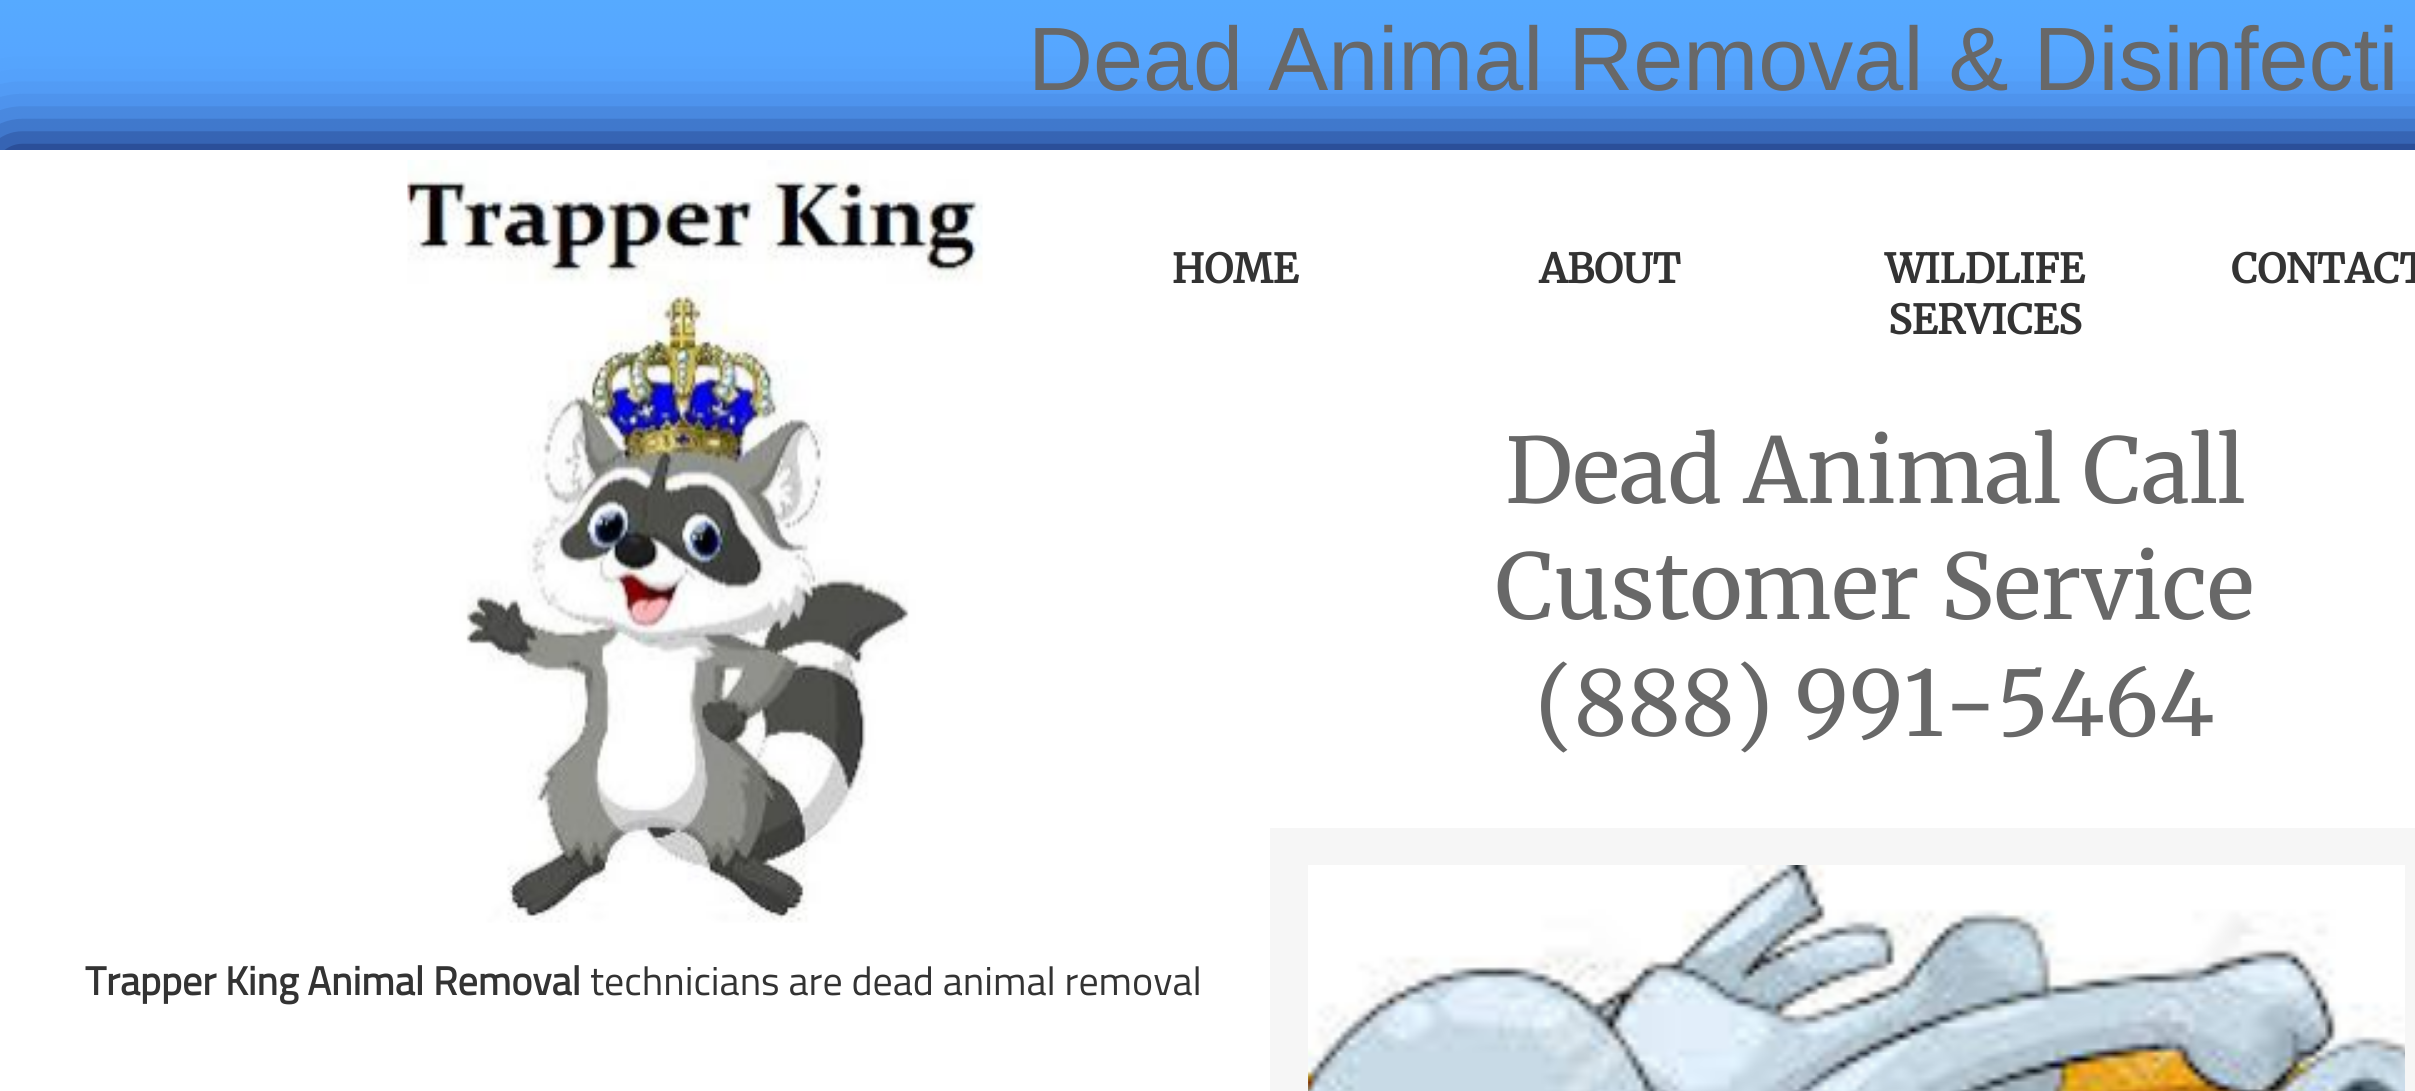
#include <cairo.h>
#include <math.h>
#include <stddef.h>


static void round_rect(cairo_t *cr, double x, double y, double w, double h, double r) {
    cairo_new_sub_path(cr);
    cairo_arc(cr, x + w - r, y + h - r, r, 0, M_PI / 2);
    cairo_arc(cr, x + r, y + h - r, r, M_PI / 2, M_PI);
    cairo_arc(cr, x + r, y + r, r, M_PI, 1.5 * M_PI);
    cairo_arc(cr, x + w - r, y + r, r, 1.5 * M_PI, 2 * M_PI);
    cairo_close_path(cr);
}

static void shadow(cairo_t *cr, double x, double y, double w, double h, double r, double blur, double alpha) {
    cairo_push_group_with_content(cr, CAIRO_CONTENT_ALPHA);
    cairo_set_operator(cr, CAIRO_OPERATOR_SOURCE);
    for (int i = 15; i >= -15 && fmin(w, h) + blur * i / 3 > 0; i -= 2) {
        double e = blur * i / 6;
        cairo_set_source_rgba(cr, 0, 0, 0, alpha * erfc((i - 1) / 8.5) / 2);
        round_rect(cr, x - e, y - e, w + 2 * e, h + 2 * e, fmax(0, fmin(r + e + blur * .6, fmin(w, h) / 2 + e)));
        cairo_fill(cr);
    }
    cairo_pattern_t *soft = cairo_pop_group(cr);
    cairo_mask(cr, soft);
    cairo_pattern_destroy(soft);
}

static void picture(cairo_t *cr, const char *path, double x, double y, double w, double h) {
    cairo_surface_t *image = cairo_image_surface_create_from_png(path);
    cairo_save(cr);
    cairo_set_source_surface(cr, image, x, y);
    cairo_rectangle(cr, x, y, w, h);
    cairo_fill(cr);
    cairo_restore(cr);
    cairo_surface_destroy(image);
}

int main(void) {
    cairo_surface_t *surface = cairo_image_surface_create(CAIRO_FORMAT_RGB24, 2415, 1091);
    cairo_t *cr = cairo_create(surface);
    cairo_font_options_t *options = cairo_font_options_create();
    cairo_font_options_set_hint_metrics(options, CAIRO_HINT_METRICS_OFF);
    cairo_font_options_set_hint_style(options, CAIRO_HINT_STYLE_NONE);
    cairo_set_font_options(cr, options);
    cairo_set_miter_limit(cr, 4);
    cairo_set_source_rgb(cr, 1, 1, 1);
    cairo_paint(cr);
    picture(cr, "img1.png", 0, 0, 2415, 150);
    cairo_set_source_rgb(cr, 0, 0, 0.2);
    shadow(cr, 0, 150, 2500, 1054, 0, 37.5, 1);
    cairo_set_source_rgb(cr, 1, 1, 1);
    cairo_rectangle(cr, 0, 150, 2415, 941);
    cairo_fill(cr);
    cairo_select_font_face(cr, "Liberation Sans", CAIRO_FONT_SLANT_NORMAL, CAIRO_FONT_WEIGHT_NORMAL);
    cairo_set_font_size(cr, 90);
    cairo_set_source_rgb(cr, 0.408, 0.408, 0.408);
    cairo_move_to(cr, 1028, 90);
    cairo_show_text(cr, "Dead Animal Removal & Disinfecti");
    picture(cr, "img2.png", 407, 160, 576, 763);
    cairo_select_font_face(cr, "Merriweather", CAIRO_FONT_SLANT_NORMAL, CAIRO_FONT_WEIGHT_BOLD);
    cairo_set_font_size(cr, 40);
    cairo_set_source_rgb(cr, 0.2, 0.2, 0.2);
    cairo_move_to(cr, 1172, 283);
    cairo_show_text(cr, "HOME");
    cairo_move_to(cr, 1539, 283);
    cairo_show_text(cr, "ABOUT");
    cairo_move_to(cr, 1885, 283);
    cairo_show_text(cr, "WILDLIFE");
    cairo_move_to(cr, 1888, 334);
    cairo_show_text(cr, "SERVICES");
    cairo_move_to(cr, 2231, 283);
    cairo_show_text(cr, "CONTACT");
    cairo_select_font_face(cr, "Merriweather Light", CAIRO_FONT_SLANT_NORMAL, CAIRO_FONT_WEIGHT_NORMAL);
    cairo_set_font_size(cr, 90);
    cairo_set_source_rgb(cr, 0.408, 0.408, 0.408);
    cairo_move_to(cr, 1505, 503);
    cairo_show_text(cr, "Dead Animal Call");
    cairo_move_to(cr, 1495, 619);
    cairo_show_text(cr, "Customer Service");
    cairo_move_to(cr, 1535, 736);
    cairo_show_text(cr, "(888) 991-5464");
    cairo_select_font_face(cr, "Titillium Web", CAIRO_FONT_SLANT_NORMAL, CAIRO_FONT_WEIGHT_BOLD);
    cairo_set_font_size(cr, 40);
    cairo_set_source_rgb(cr, 0.2, 0.2, 0.2);
    cairo_move_to(cr, 85, 995);
    cairo_show_text(cr, "Trapper King Animal Removal");
    cairo_select_font_face(cr, "Titillium Web", CAIRO_FONT_SLANT_NORMAL, CAIRO_FONT_WEIGHT_NORMAL);
    cairo_move_to(cr, 590, 995);
    cairo_show_text(cr, "technicians are dead animal removal");
    cairo_rectangle(cr, 1289, 847, 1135, 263);
    cairo_set_source_rgb(cr, 0.961, 0.961, 0.961);
    cairo_set_line_width(cr, 38);
    cairo_stroke(cr);
    picture(cr, "img3.png", 1308, 865, 1097, 226);
    cairo_surface_write_to_png(surface, "page.png");
    cairo_font_options_destroy(options);
    cairo_destroy(cr);
    cairo_surface_destroy(surface);
    return 0;
}
